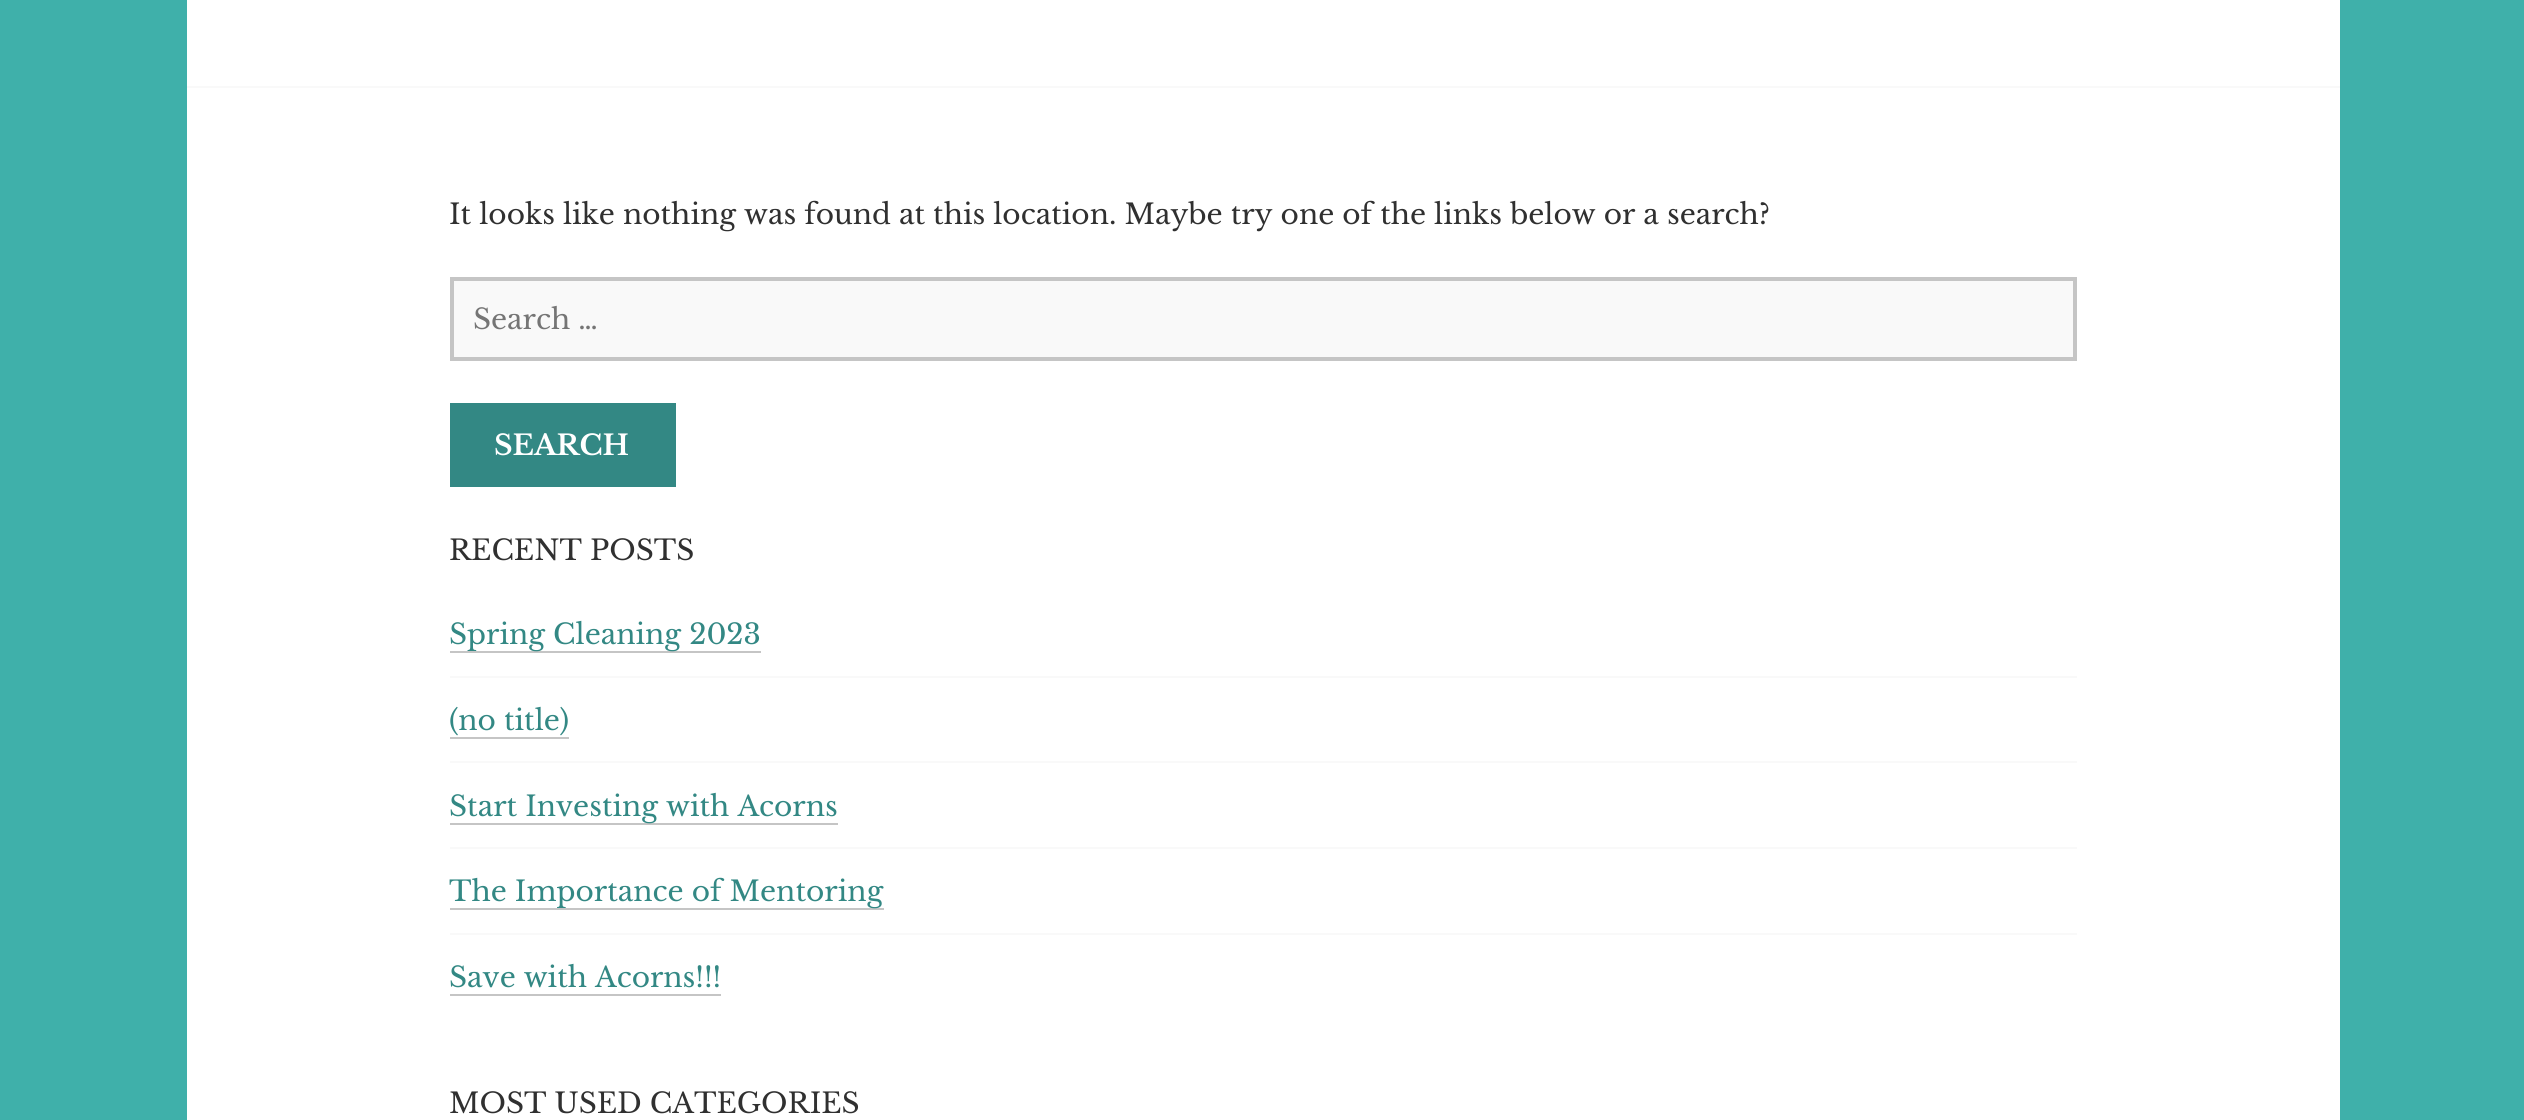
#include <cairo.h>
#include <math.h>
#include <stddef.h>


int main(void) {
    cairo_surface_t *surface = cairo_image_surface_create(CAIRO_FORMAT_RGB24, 2524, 1120);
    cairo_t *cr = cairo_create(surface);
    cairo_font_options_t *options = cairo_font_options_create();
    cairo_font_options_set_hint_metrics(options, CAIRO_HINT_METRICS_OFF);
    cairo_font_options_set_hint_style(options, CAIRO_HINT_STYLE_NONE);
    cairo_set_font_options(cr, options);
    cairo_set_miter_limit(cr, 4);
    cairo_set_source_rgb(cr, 0.247, 0.69, 0.667);
    cairo_paint(cr);
    cairo_set_source_rgb(cr, 1, 1, 1);
    cairo_rectangle(cr, 187, 0, 2153, 1120);
    cairo_fill(cr);
    cairo_set_source_rgb(cr, 0.973, 0.973, 0.973);
    cairo_rectangle(cr, 187, 86, 2153, 2);
    cairo_fill(cr);
    cairo_select_font_face(cr, "Libre Baskerville", CAIRO_FONT_SLANT_NORMAL, CAIRO_FONT_WEIGHT_NORMAL);
    cairo_set_font_size(cr, 28);
    cairo_set_source_rgb(cr, 0.188, 0.188, 0.188);
    cairo_move_to(cr, 449, 224);
    cairo_show_text(cr, "It looks like nothing was found at this location. Maybe try one of the links below or a search?");
    cairo_set_source_rgb(cr, 0.973, 0.973, 0.973);
    cairo_rectangle(cr, 452, 279, 1623, 80);
    cairo_fill_preserve(cr);
    cairo_set_source_rgb(cr, 0.773, 0.773, 0.773);
    cairo_set_line_width(cr, 4);
    cairo_stroke(cr);
    cairo_set_source_rgb(cr, 0.459, 0.459, 0.459);
    cairo_move_to(cr, 473, 329);
    cairo_show_text(cr, "Search …");
    cairo_set_source_rgb(cr, 0.2, 0.533, 0.518);
    cairo_rectangle(cr, 450, 403, 226, 84);
    cairo_fill(cr);
    cairo_select_font_face(cr, "Libre Baskerville", CAIRO_FONT_SLANT_NORMAL, CAIRO_FONT_WEIGHT_BOLD);
    cairo_set_source_rgb(cr, 1, 1, 1);
    cairo_move_to(cr, 494, 455);
    cairo_show_text(cr, "SEARCH");
    cairo_select_font_face(cr, "Libre Baskerville", CAIRO_FONT_SLANT_NORMAL, CAIRO_FONT_WEIGHT_NORMAL);
    cairo_set_source_rgb(cr, 0.188, 0.188, 0.188);
    cairo_move_to(cr, 449, 560);
    cairo_show_text(cr, "RECENT POSTS");
    cairo_set_source_rgb(cr, 0.773, 0.773, 0.773);
    cairo_rectangle(cr, 450, 651, 311, 2);
    cairo_fill(cr);
    cairo_set_source_rgb(cr, 0.2, 0.533, 0.518);
    cairo_move_to(cr, 449, 644);
    cairo_show_text(cr, "Spring Cleaning 2023");
    cairo_set_source_rgb(cr, 0.973, 0.973, 0.973);
    cairo_rectangle(cr, 450, 676, 1627, 2);
    cairo_fill(cr);
    cairo_set_source_rgb(cr, 0.2, 0.533, 0.518);
    cairo_move_to(cr, 449, 730);
    cairo_show_text(cr, "(no title)");
    cairo_set_source_rgb(cr, 0.773, 0.773, 0.773);
    cairo_rectangle(cr, 450, 737, 119, 2);
    cairo_fill(cr);
    cairo_set_source_rgb(cr, 0.973, 0.973, 0.973);
    cairo_rectangle(cr, 450, 761, 1627, 2);
    cairo_fill(cr);
    cairo_set_source_rgb(cr, 0.773, 0.773, 0.773);
    cairo_rectangle(cr, 450, 823, 388, 2);
    cairo_fill(cr);
    cairo_set_source_rgb(cr, 0.2, 0.533, 0.518);
    cairo_move_to(cr, 449, 816);
    cairo_show_text(cr, "Start Investing with Acorns");
    cairo_set_source_rgb(cr, 0.973, 0.973, 0.973);
    cairo_rectangle(cr, 450, 847, 1627, 2);
    cairo_fill(cr);
    cairo_set_source_rgb(cr, 0.773, 0.773, 0.773);
    cairo_rectangle(cr, 450, 908, 434, 2);
    cairo_fill(cr);
    cairo_set_source_rgb(cr, 0.2, 0.533, 0.518);
    cairo_move_to(cr, 449, 901);
    cairo_show_text(cr, "The Importance of Mentoring");
    cairo_set_source_rgb(cr, 0.973, 0.973, 0.973);
    cairo_rectangle(cr, 450, 933, 1627, 2);
    cairo_fill(cr);
    cairo_set_source_rgb(cr, 0.2, 0.533, 0.518);
    cairo_move_to(cr, 449, 987);
    cairo_show_text(cr, "Save with Acorns!!!");
    cairo_set_source_rgb(cr, 0.773, 0.773, 0.773);
    cairo_rectangle(cr, 450, 994, 271, 2);
    cairo_fill(cr);
    cairo_set_source_rgb(cr, 0.188, 0.188, 0.188);
    cairo_move_to(cr, 449, 1113);
    cairo_show_text(cr, "MOST USED CATEGORIES");
    cairo_surface_write_to_png(surface, "page.png");
    cairo_font_options_destroy(options);
    cairo_destroy(cr);
    cairo_surface_destroy(surface);
    return 0;
}
